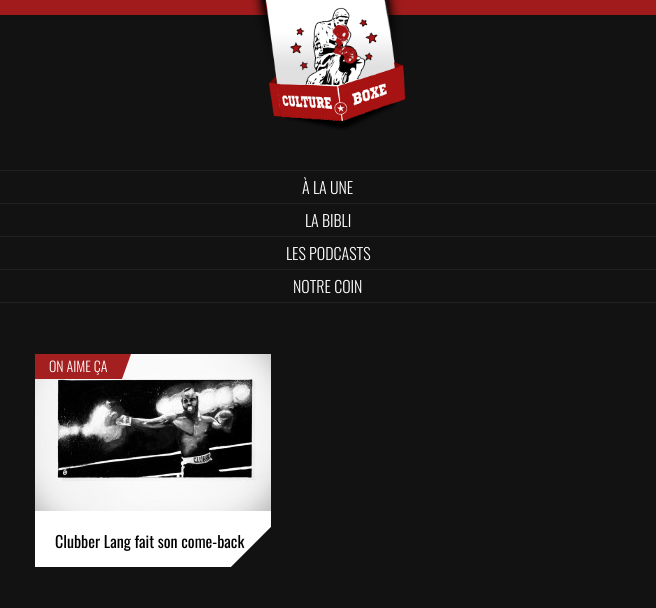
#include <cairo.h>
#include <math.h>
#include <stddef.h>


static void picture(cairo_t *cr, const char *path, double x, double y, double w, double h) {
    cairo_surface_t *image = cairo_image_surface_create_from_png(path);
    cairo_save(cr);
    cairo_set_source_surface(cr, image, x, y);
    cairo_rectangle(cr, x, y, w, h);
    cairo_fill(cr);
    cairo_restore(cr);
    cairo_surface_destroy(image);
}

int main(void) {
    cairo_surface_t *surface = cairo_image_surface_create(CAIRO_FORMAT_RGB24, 656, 608);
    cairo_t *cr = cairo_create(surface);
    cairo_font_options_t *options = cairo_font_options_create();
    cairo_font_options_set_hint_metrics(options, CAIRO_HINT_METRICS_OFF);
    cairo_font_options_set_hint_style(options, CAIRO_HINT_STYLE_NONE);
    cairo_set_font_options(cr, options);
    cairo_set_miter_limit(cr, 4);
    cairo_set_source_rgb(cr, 0.071, 0.071, 0.071);
    cairo_paint(cr);
    cairo_set_source_rgb(cr, 0.631, 0.106, 0.11);
    cairo_rectangle(cr, 0, 0, 656, 15);
    cairo_fill(cr);
    picture(cr, "img1.png", 251, 0, 155, 130);
    cairo_set_source_rgb(cr, 0.129, 0.129, 0.129);
    cairo_rectangle(cr, 0, 170, 656, 1);
    cairo_fill(cr);
    cairo_select_font_face(cr, "Oswald Light", CAIRO_FONT_SLANT_NORMAL, CAIRO_FONT_WEIGHT_NORMAL);
    cairo_set_font_size(cr, 16);
    cairo_set_source_rgb(cr, 1, 1, 1);
    cairo_move_to(cr, 302, 194);
    cairo_show_text(cr, "À LA UNE");
    cairo_set_source_rgb(cr, 0.129, 0.129, 0.129);
    cairo_rectangle(cr, 0, 203, 656, 1);
    cairo_fill(cr);
    cairo_set_source_rgb(cr, 1, 1, 1);
    cairo_move_to(cr, 305, 227);
    cairo_show_text(cr, "LA BIBLI");
    cairo_set_source_rgb(cr, 0.129, 0.129, 0.129);
    cairo_rectangle(cr, 0, 236, 656, 1);
    cairo_fill(cr);
    cairo_set_source_rgb(cr, 1, 1, 1);
    cairo_move_to(cr, 286, 260);
    cairo_show_text(cr, "LES PODCASTS");
    cairo_set_source_rgb(cr, 0.129, 0.129, 0.129);
    cairo_rectangle(cr, 0, 269, 656, 1);
    cairo_fill(cr);
    cairo_rectangle(cr, 0, 302, 656, 1);
    cairo_fill(cr);
    cairo_set_source_rgb(cr, 1, 1, 1);
    cairo_move_to(cr, 293, 293);
    cairo_show_text(cr, "NOTRE COIN");
    picture(cr, "img2.png", 35, 354, 236, 157);
    cairo_save(cr);
    cairo_rectangle(cr, 35, 354, 236, 213);
    cairo_clip(cr);
    cairo_set_source_rgb(cr, 0.643, 0.122, 0.125);
    cairo_new_path(cr);
    cairo_move_to(cr, 35, 354);
    cairo_line_to(cr, 131, 354);
    cairo_line_to(cr, 122, 379);
    cairo_line_to(cr, 25, 379);
    cairo_close_path(cr);
    cairo_fill(cr);
    cairo_restore(cr);
    cairo_set_font_size(cr, 14);
    cairo_move_to(cr, 49, 372);
    cairo_show_text(cr, "ON AIME ÇA");
    cairo_rectangle(cr, 35, 511, 236, 41);
    cairo_fill(cr);
    cairo_select_font_face(cr, "Oswald", CAIRO_FONT_SLANT_NORMAL, CAIRO_FONT_WEIGHT_NORMAL);
    cairo_set_font_size(cr, 16);
    cairo_set_source_rgb(cr, 0, 0, 0);
    cairo_move_to(cr, 55, 548);
    cairo_show_text(cr, "Clubber Lang fait son come-back");
    cairo_set_source_rgb(cr, 1, 1, 1);
    cairo_rectangle(cr, 35, 552, 211, 15);
    cairo_fill(cr);
    picture(cr, "img3.png", 231, 527, 40, 40);
    cairo_surface_write_to_png(surface, "page.png");
    cairo_font_options_destroy(options);
    cairo_destroy(cr);
    cairo_surface_destroy(surface);
    return 0;
}
